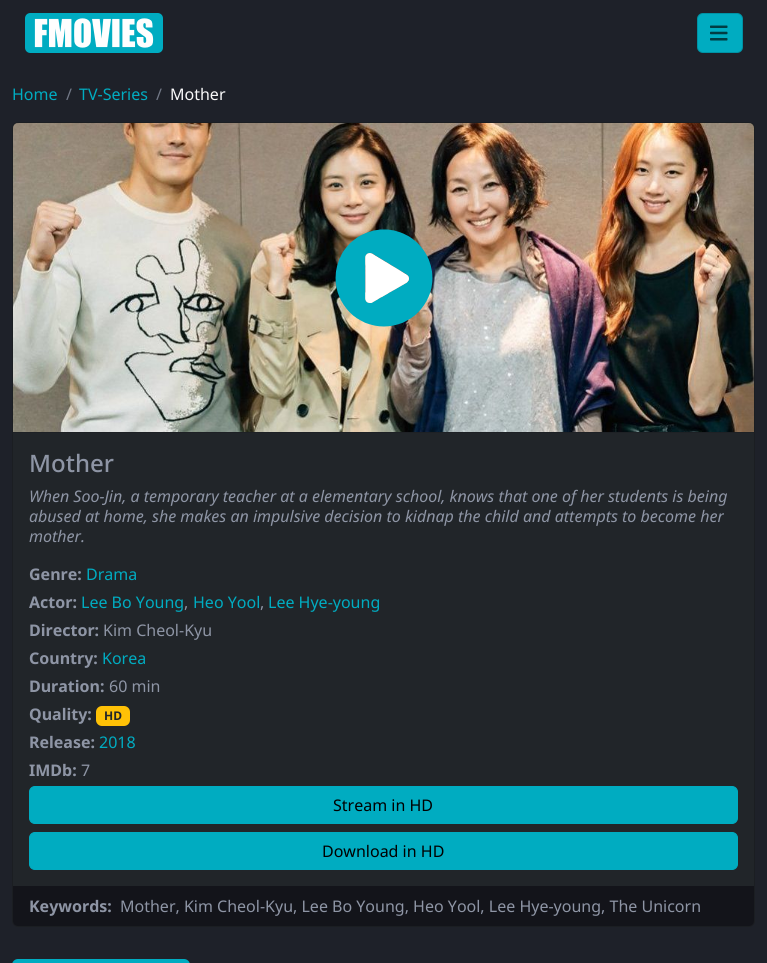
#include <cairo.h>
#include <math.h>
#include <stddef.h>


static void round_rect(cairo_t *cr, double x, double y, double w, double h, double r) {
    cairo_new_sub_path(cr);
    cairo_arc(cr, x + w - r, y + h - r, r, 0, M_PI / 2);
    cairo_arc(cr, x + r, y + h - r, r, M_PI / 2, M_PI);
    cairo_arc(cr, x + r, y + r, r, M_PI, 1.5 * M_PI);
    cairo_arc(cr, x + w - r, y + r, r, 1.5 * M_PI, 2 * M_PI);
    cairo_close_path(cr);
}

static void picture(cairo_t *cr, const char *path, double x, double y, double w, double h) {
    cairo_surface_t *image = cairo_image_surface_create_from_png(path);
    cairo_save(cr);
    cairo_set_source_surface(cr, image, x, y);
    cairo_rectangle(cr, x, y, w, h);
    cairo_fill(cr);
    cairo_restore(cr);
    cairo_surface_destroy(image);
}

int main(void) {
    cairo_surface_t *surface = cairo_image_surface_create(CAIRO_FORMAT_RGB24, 767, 963);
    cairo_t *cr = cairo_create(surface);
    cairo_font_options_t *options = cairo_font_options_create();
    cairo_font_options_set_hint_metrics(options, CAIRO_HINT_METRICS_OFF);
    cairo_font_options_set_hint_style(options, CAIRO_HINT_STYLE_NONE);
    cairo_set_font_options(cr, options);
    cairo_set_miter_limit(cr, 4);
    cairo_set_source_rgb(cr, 0.118, 0.129, 0.161);
    cairo_paint(cr);
    picture(cr, "img1.png", 25, 13, 138, 40);
    cairo_set_source_rgb(cr, 0, 0.675, 0.757);
    round_rect(cr, 697, 13, 46, 40, 6);
    cairo_fill(cr);
    round_rect(cr, 697.5, 13.5, 45, 39, 5.5);
    cairo_set_source_rgba(cr, 0, 0, 0, 0.15);
    cairo_set_line_width(cr, 1);
    cairo_stroke(cr);
    picture(cr, "img2.png", 710, 25, 18, 16);
    cairo_select_font_face(cr, "Noto Sans", CAIRO_FONT_SLANT_NORMAL, CAIRO_FONT_WEIGHT_NORMAL);
    cairo_set_font_size(cr, 16);
    cairo_set_source_rgb(cr, 0, 0.675, 0.757);
    cairo_move_to(cr, 12, 100);
    cairo_show_text(cr, "Home");
    cairo_set_source_rgb(cr, 0.447, 0.471, 0.525);
    cairo_move_to(cr, 66, 100);
    cairo_show_text(cr, "/");
    cairo_set_source_rgb(cr, 0, 0.675, 0.757);
    cairo_move_to(cr, 79, 100);
    cairo_show_text(cr, "TV-Series");
    cairo_set_source_rgb(cr, 0.447, 0.471, 0.525);
    cairo_move_to(cr, 156, 100);
    cairo_show_text(cr, "/");
    cairo_set_source_rgb(cr, 0.973, 0.976, 0.98);
    cairo_move_to(cr, 170, 100);
    cairo_show_text(cr, "Mother");
    cairo_set_source_rgb(cr, 0.129, 0.145, 0.161);
    round_rect(cr, 12.5, 122.5, 742, 804, 5.5);
    cairo_fill_preserve(cr);
    cairo_set_source_rgb(cr, 0.106, 0.118, 0.133);
    cairo_stroke(cr);
    cairo_set_source_rgb(cr, 0.118, 0.129, 0.145);
    cairo_rectangle(cr, 13, 432, 741, 1);
    cairo_fill(cr);
    picture(cr, "img3.png", 13, 123, 741, 309);
    picture(cr, "img4.png", 335, 229, 98, 98);
    cairo_select_font_face(cr, "Noto Sans Medium", CAIRO_FONT_SLANT_NORMAL, CAIRO_FONT_WEIGHT_NORMAL);
    cairo_set_font_size(cr, 24);
    cairo_set_source_rgb(cr, 0.557, 0.584, 0.647);
    cairo_move_to(cr, 29, 472);
    cairo_show_text(cr, "Mother");
    cairo_select_font_face(cr, "Noto Sans", CAIRO_FONT_SLANT_ITALIC, CAIRO_FONT_WEIGHT_NORMAL);
    cairo_set_font_size(cr, 16);
    cairo_move_to(cr, 29, 502);
    cairo_show_text(cr, "When Soo-Jin, a temporary teacher at a elementary school, knows that one of her students is being");
    cairo_move_to(cr, 29, 522);
    cairo_show_text(cr, "abused at home, she makes an impulsive decision to kidnap the child and attempts to become her");
    cairo_move_to(cr, 29, 542);
    cairo_show_text(cr, "mother.");
    cairo_select_font_face(cr, "Noto Sans", CAIRO_FONT_SLANT_NORMAL, CAIRO_FONT_WEIGHT_BOLD);
    cairo_move_to(cr, 29, 580);
    cairo_show_text(cr, "Genre:");
    cairo_select_font_face(cr, "Noto Sans", CAIRO_FONT_SLANT_NORMAL, CAIRO_FONT_WEIGHT_NORMAL);
    cairo_set_source_rgb(cr, 0, 0.675, 0.757);
    cairo_move_to(cr, 86, 580);
    cairo_show_text(cr, "Drama");
    cairo_select_font_face(cr, "Noto Sans", CAIRO_FONT_SLANT_NORMAL, CAIRO_FONT_WEIGHT_BOLD);
    cairo_set_source_rgb(cr, 0.557, 0.584, 0.647);
    cairo_move_to(cr, 29, 608);
    cairo_show_text(cr, "Actor:");
    cairo_select_font_face(cr, "Noto Sans", CAIRO_FONT_SLANT_NORMAL, CAIRO_FONT_WEIGHT_NORMAL);
    cairo_set_source_rgb(cr, 0, 0.675, 0.757);
    cairo_move_to(cr, 81, 608);
    cairo_show_text(cr, "Lee Bo Young");
    cairo_set_source_rgb(cr, 0.557, 0.584, 0.647);
    cairo_move_to(cr, 184, 608);
    cairo_show_text(cr, ",");
    cairo_set_source_rgb(cr, 0, 0.675, 0.757);
    cairo_move_to(cr, 193, 608);
    cairo_show_text(cr, "Heo Yool");
    cairo_set_source_rgb(cr, 0.557, 0.584, 0.647);
    cairo_move_to(cr, 260, 608);
    cairo_show_text(cr, ",");
    cairo_set_source_rgb(cr, 0, 0.675, 0.757);
    cairo_move_to(cr, 268, 608);
    cairo_show_text(cr, "Lee Hye-young");
    cairo_select_font_face(cr, "Noto Sans", CAIRO_FONT_SLANT_NORMAL, CAIRO_FONT_WEIGHT_BOLD);
    cairo_set_source_rgb(cr, 0.557, 0.584, 0.647);
    cairo_move_to(cr, 29, 636);
    cairo_show_text(cr, "Director:");
    cairo_select_font_face(cr, "Noto Sans", CAIRO_FONT_SLANT_NORMAL, CAIRO_FONT_WEIGHT_NORMAL);
    cairo_move_to(cr, 103, 636);
    cairo_show_text(cr, "Kim Cheol-Kyu");
    cairo_select_font_face(cr, "Noto Sans", CAIRO_FONT_SLANT_NORMAL, CAIRO_FONT_WEIGHT_BOLD);
    cairo_move_to(cr, 29, 664);
    cairo_show_text(cr, "Country:");
    cairo_select_font_face(cr, "Noto Sans", CAIRO_FONT_SLANT_NORMAL, CAIRO_FONT_WEIGHT_NORMAL);
    cairo_set_source_rgb(cr, 0, 0.675, 0.757);
    cairo_move_to(cr, 102, 664);
    cairo_show_text(cr, "Korea");
    cairo_select_font_face(cr, "Noto Sans", CAIRO_FONT_SLANT_NORMAL, CAIRO_FONT_WEIGHT_BOLD);
    cairo_set_source_rgb(cr, 0.557, 0.584, 0.647);
    cairo_move_to(cr, 29, 692);
    cairo_show_text(cr, "Duration:");
    cairo_select_font_face(cr, "Noto Sans", CAIRO_FONT_SLANT_NORMAL, CAIRO_FONT_WEIGHT_NORMAL);
    cairo_move_to(cr, 109, 692);
    cairo_show_text(cr, "60 min");
    cairo_select_font_face(cr, "Noto Sans", CAIRO_FONT_SLANT_NORMAL, CAIRO_FONT_WEIGHT_BOLD);
    cairo_move_to(cr, 29, 720);
    cairo_show_text(cr, "Quality:");
    cairo_set_source_rgb(cr, 1, 0.757, 0.027);
    round_rect(cr, 96, 706, 34, 20, 6);
    cairo_fill(cr);
    cairo_set_font_size(cr, 12);
    cairo_set_source_rgb(cr, 0.129, 0.145, 0.161);
    cairo_move_to(cr, 104, 720);
    cairo_show_text(cr, "HD");
    cairo_set_font_size(cr, 16);
    cairo_set_source_rgb(cr, 0.557, 0.584, 0.647);
    cairo_move_to(cr, 29, 748);
    cairo_show_text(cr, "Release:");
    cairo_select_font_face(cr, "Noto Sans", CAIRO_FONT_SLANT_NORMAL, CAIRO_FONT_WEIGHT_NORMAL);
    cairo_set_source_rgb(cr, 0, 0.675, 0.757);
    cairo_move_to(cr, 99, 748);
    cairo_show_text(cr, "2018");
    cairo_select_font_face(cr, "Noto Sans", CAIRO_FONT_SLANT_NORMAL, CAIRO_FONT_WEIGHT_BOLD);
    cairo_set_source_rgb(cr, 0.557, 0.584, 0.647);
    cairo_move_to(cr, 29, 776);
    cairo_show_text(cr, "IMDb:");
    cairo_select_font_face(cr, "Noto Sans", CAIRO_FONT_SLANT_NORMAL, CAIRO_FONT_WEIGHT_NORMAL);
    cairo_move_to(cr, 81, 776);
    cairo_show_text(cr, "7");
    cairo_set_source_rgb(cr, 0, 0.675, 0.757);
    round_rect(cr, 29.5, 786.5, 708, 37, 5.5);
    cairo_fill_preserve(cr);
    cairo_stroke(cr);
    cairo_set_source_rgb(cr, 0, 0, 0);
    cairo_move_to(cr, 333, 811);
    cairo_show_text(cr, "Stream in HD");
    cairo_set_source_rgb(cr, 0, 0.675, 0.757);
    round_rect(cr, 29.5, 832.5, 708, 37, 5.5);
    cairo_fill_preserve(cr);
    cairo_stroke(cr);
    cairo_set_source_rgb(cr, 0, 0, 0);
    cairo_move_to(cr, 322, 857);
    cairo_show_text(cr, "Download in HD");
    cairo_set_source_rgb(cr, 0.075, 0.082, 0.102);
    cairo_new_path(cr);
    cairo_move_to(cr, 13, 886);
    cairo_line_to(cr, 754, 886);
    cairo_line_to(cr, 754, 921);
    cairo_curve_to(cr, 754, 924, 752, 926, 749, 926);
    cairo_line_to(cr, 18, 926);
    cairo_curve_to(cr, 15, 926, 13, 924, 13, 921);
    cairo_close_path(cr);
    cairo_fill(cr);
    cairo_select_font_face(cr, "Noto Sans", CAIRO_FONT_SLANT_NORMAL, CAIRO_FONT_WEIGHT_BOLD);
    cairo_set_source_rgb(cr, 0.557, 0.584, 0.647);
    cairo_move_to(cr, 29, 912);
    cairo_show_text(cr, "Keywords:");
    cairo_select_font_face(cr, "Noto Sans", CAIRO_FONT_SLANT_NORMAL, CAIRO_FONT_WEIGHT_NORMAL);
    cairo_move_to(cr, 120, 912);
    cairo_show_text(cr, "Mother, Kim Cheol-Kyu, Lee Bo Young, Heo Yool, Lee Hye-young, The Unicorn");
    cairo_set_source_rgb(cr, 0, 0.675, 0.757);
    round_rect(cr, 12, 959, 178, 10, 6);
    cairo_fill(cr);
    cairo_surface_write_to_png(surface, "page.png");
    cairo_font_options_destroy(options);
    cairo_destroy(cr);
    cairo_surface_destroy(surface);
    return 0;
}
